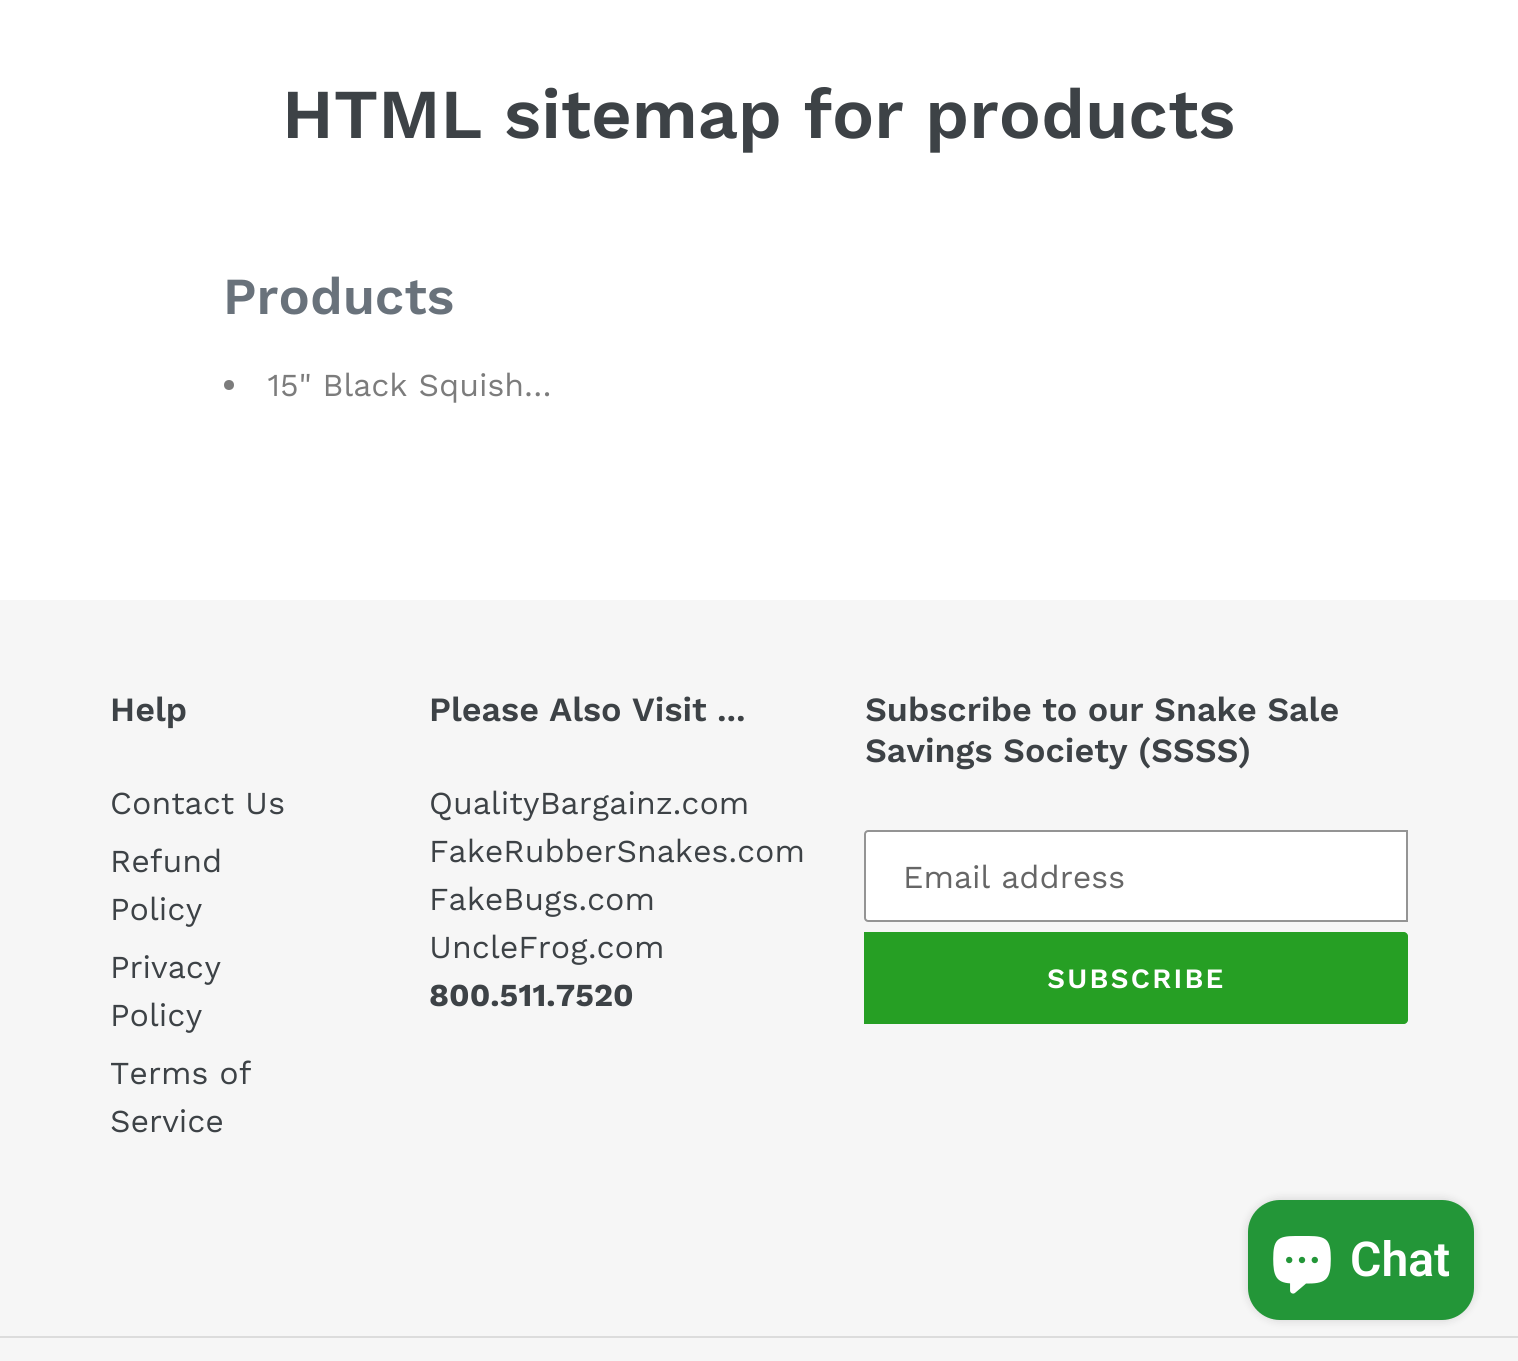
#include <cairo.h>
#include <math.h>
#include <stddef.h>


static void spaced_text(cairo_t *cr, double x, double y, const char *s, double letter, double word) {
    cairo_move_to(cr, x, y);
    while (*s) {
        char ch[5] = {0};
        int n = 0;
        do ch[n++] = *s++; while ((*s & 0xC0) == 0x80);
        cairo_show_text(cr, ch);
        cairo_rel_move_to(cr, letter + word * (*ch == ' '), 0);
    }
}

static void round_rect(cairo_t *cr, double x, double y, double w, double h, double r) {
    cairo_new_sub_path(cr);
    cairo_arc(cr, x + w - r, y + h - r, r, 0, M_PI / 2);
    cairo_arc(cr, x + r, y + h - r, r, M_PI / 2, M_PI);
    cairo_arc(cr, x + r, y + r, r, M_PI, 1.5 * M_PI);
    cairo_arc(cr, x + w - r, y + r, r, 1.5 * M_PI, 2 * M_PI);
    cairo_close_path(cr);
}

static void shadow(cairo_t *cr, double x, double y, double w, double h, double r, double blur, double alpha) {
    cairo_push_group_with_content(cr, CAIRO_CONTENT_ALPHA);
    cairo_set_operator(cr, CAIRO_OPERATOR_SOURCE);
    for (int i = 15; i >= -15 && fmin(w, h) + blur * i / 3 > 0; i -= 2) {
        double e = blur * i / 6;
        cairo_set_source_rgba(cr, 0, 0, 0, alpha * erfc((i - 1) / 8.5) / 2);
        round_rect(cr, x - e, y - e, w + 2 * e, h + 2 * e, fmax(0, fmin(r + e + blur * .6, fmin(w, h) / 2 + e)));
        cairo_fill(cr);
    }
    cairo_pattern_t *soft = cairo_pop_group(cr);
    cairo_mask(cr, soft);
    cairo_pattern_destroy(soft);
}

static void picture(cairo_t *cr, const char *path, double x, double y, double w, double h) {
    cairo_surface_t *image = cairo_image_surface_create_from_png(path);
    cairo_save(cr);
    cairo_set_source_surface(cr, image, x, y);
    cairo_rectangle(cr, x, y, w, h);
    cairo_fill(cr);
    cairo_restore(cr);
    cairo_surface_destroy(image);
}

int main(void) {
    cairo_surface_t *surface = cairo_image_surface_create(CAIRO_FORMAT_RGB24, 1518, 1361);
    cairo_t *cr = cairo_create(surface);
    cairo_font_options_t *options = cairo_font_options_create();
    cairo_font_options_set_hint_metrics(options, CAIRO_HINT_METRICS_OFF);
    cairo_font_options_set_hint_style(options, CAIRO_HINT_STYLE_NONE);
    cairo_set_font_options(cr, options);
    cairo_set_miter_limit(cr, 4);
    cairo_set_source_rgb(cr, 1, 1, 1);
    cairo_paint(cr);
    cairo_select_font_face(cr, "Work Sans SemiBold", CAIRO_FONT_SLANT_NORMAL, CAIRO_FONT_WEIGHT_NORMAL);
    cairo_set_font_size(cr, 70);
    cairo_set_source_rgb(cr, 0.239, 0.259, 0.275);
    cairo_move_to(cr, 282, 138);
    cairo_show_text(cr, "HTML sitemap for products");
    cairo_set_font_size(cr, 52);
    cairo_set_source_rgb(cr, 0.412, 0.447, 0.482);
    cairo_move_to(cr, 223, 314);
    cairo_show_text(cr, "Products");
    cairo_set_source_rgb(cr, 0.486, 0.486, 0.486);
    cairo_new_path(cr);
    cairo_arc(cr, 229, 385, 5, 0, 2 * M_PI);
    cairo_fill(cr);
    cairo_select_font_face(cr, "Work Sans", CAIRO_FONT_SLANT_NORMAL, CAIRO_FONT_WEIGHT_NORMAL);
    cairo_set_font_size(cr, 32);
    cairo_move_to(cr, 267, 396);
    cairo_show_text(cr, "15\" Black Squish…");
    cairo_set_source_rgb(cr, 0.961, 0.961, 0.961);
    cairo_rectangle(cr, 0, 600, 1518, 761);
    cairo_fill(cr);
    cairo_select_font_face(cr, "Work Sans SemiBold", CAIRO_FONT_SLANT_NORMAL, CAIRO_FONT_WEIGHT_NORMAL);
    cairo_set_font_size(cr, 34);
    cairo_set_source_rgb(cr, 0.239, 0.259, 0.275);
    cairo_move_to(cr, 110, 721);
    cairo_show_text(cr, "Help");
    cairo_select_font_face(cr, "Work Sans", CAIRO_FONT_SLANT_NORMAL, CAIRO_FONT_WEIGHT_NORMAL);
    cairo_set_font_size(cr, 32);
    cairo_move_to(cr, 110, 814);
    cairo_show_text(cr, "Contact Us");
    cairo_move_to(cr, 110, 872);
    cairo_show_text(cr, "Refund");
    cairo_move_to(cr, 110, 920);
    cairo_show_text(cr, "Policy");
    cairo_move_to(cr, 110, 978);
    cairo_show_text(cr, "Privacy");
    cairo_move_to(cr, 110, 1026);
    cairo_show_text(cr, "Policy");
    cairo_move_to(cr, 110, 1084);
    cairo_show_text(cr, "Terms of");
    cairo_move_to(cr, 110, 1132);
    cairo_show_text(cr, "Service");
    cairo_select_font_face(cr, "Work Sans SemiBold", CAIRO_FONT_SLANT_NORMAL, CAIRO_FONT_WEIGHT_NORMAL);
    cairo_set_font_size(cr, 34);
    cairo_move_to(cr, 429, 721);
    cairo_show_text(cr, "Please Also Visit ...");
    cairo_select_font_face(cr, "Work Sans", CAIRO_FONT_SLANT_NORMAL, CAIRO_FONT_WEIGHT_NORMAL);
    cairo_set_font_size(cr, 32);
    cairo_move_to(cr, 429, 814);
    cairo_show_text(cr, "QualityBargainz.com");
    cairo_move_to(cr, 429, 862);
    cairo_show_text(cr, "FakeRubberSnakes.com");
    cairo_move_to(cr, 429, 910);
    cairo_show_text(cr, "FakeBugs.com");
    cairo_move_to(cr, 429, 958);
    cairo_show_text(cr, "UncleFrog.com");
    cairo_select_font_face(cr, "Work Sans", CAIRO_FONT_SLANT_NORMAL, CAIRO_FONT_WEIGHT_BOLD);
    cairo_move_to(cr, 429, 1006);
    cairo_show_text(cr, "800.511.7520");
    cairo_select_font_face(cr, "Work Sans SemiBold", CAIRO_FONT_SLANT_NORMAL, CAIRO_FONT_WEIGHT_NORMAL);
    cairo_set_font_size(cr, 34);
    cairo_move_to(cr, 865, 721);
    cairo_show_text(cr, "Subscribe to our Snake Sale");
    cairo_move_to(cr, 865, 762);
    cairo_show_text(cr, "Savings Society (SSSS)");
    cairo_set_source_rgb(cr, 1, 1, 1);
    cairo_new_path(cr);
    cairo_move_to(cr, 868, 831);
    cairo_line_to(cr, 1407, 831);
    cairo_line_to(cr, 1407, 921);
    cairo_line_to(cr, 868, 921);
    cairo_curve_to(cr, 866.5, 921, 865, 919.5, 865, 918);
    cairo_line_to(cr, 865, 834);
    cairo_curve_to(cr, 865, 832.5, 866.5, 831, 868, 831);
    cairo_close_path(cr);
    cairo_fill_preserve(cr);
    cairo_set_source_rgb(cr, 0.58, 0.58, 0.58);
    cairo_stroke(cr);
    cairo_select_font_face(cr, "Work Sans", CAIRO_FONT_SLANT_NORMAL, CAIRO_FONT_WEIGHT_NORMAL);
    cairo_set_font_size(cr, 32);
    cairo_set_source_rgb(cr, 0.4, 0.4, 0.4);
    cairo_move_to(cr, 903, 888);
    cairo_show_text(cr, "Email address");
    cairo_set_source_rgb(cr, 0.149, 0.624, 0.141);
    cairo_new_path(cr);
    cairo_move_to(cr, 864, 932);
    cairo_line_to(cr, 1404, 932);
    cairo_curve_to(cr, 1406, 932, 1408, 934, 1408, 936);
    cairo_line_to(cr, 1408, 1020);
    cairo_curve_to(cr, 1408, 1022, 1406, 1024, 1404, 1024);
    cairo_line_to(cr, 864, 1024);
    cairo_close_path(cr);
    cairo_fill(cr);
    cairo_select_font_face(cr, "Work Sans SemiBold", CAIRO_FONT_SLANT_NORMAL, CAIRO_FONT_WEIGHT_NORMAL);
    cairo_set_font_size(cr, 28);
    cairo_set_source_rgb(cr, 1, 1, 1);
    spaced_text(cr, 1047, 988, "SUBSCRIBE", 2.25, 0);
    cairo_set_source_rgb(cr, 0.863, 0.863, 0.863);
    cairo_rectangle(cr, 0, 1336, 1518, 2);
    cairo_fill(cr);
    cairo_set_source_rgb(cr, 0, 0, 0);
    shadow(cr, 1248, 1200, 226, 120, 32, 5, 0.15);
    cairo_set_source_rgb(cr, 0.137, 0.588, 0.22);
    round_rect(cr, 1248, 1200, 226, 120, 32);
    cairo_fill(cr);
    picture(cr, "img1.png", 1273, 1236, 58, 58);
    cairo_select_font_face(cr, "Roboto SemiBold", CAIRO_FONT_SLANT_NORMAL, CAIRO_FONT_WEIGHT_NORMAL);
    cairo_set_font_size(cr, 48);
    cairo_set_source_rgb(cr, 1, 1, 1);
    cairo_move_to(cr, 1350, 1276);
    cairo_show_text(cr, "Chat");
    cairo_surface_write_to_png(surface, "page.png");
    cairo_font_options_destroy(options);
    cairo_destroy(cr);
    cairo_surface_destroy(surface);
    return 0;
}
